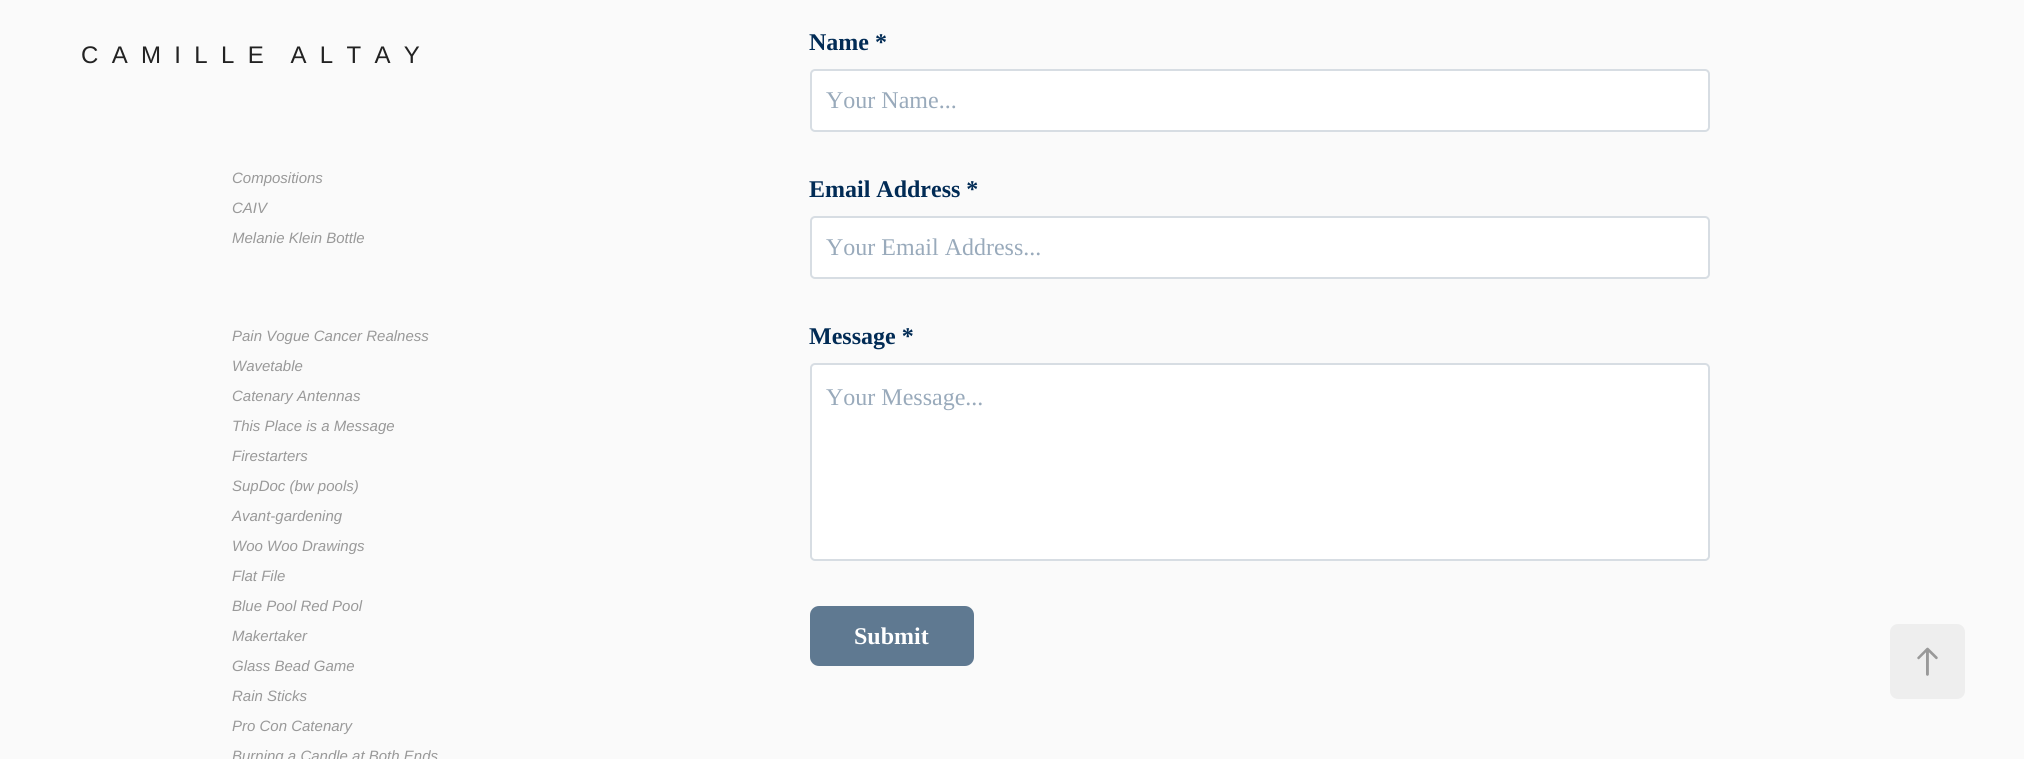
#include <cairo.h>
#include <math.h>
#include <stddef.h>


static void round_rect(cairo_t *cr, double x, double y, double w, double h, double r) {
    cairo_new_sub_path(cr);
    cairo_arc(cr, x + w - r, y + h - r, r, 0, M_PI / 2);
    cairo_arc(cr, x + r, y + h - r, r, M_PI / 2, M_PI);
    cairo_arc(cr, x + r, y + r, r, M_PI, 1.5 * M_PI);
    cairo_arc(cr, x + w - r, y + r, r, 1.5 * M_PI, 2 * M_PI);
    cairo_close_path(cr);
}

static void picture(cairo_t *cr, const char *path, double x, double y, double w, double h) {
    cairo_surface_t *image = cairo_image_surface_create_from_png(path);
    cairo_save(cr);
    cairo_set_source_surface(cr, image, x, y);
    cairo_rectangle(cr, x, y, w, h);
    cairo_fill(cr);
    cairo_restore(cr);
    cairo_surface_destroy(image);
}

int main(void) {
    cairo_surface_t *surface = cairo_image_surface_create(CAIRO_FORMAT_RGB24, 2024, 759);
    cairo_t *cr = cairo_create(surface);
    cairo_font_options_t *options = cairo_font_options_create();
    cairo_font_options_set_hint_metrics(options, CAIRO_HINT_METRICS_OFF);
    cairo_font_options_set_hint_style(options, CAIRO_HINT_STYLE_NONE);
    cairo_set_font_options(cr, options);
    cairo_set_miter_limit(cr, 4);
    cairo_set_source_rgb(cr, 0.98, 0.98, 0.98);
    cairo_paint(cr);
    cairo_select_font_face(cr, "Liberation Sans", CAIRO_FONT_SLANT_NORMAL, CAIRO_FONT_WEIGHT_NORMAL);
    cairo_set_font_size(cr, 24);
    cairo_set_source_rgb(cr, 0.133, 0.133, 0.133);
    cairo_move_to(cr, 81, 63);
    cairo_show_text(cr, "C  A  M  I  L  L  E    A  L  T  A  Y");
    cairo_select_font_face(cr, "Liberation Sans", CAIRO_FONT_SLANT_ITALIC, CAIRO_FONT_WEIGHT_NORMAL);
    cairo_set_font_size(cr, 15);
    cairo_set_source_rgb(cr, 0.6, 0.6, 0.6);
    cairo_move_to(cr, 232, 183);
    cairo_show_text(cr, "Compositions");
    cairo_move_to(cr, 232, 213);
    cairo_show_text(cr, "CAIV");
    cairo_move_to(cr, 232, 243);
    cairo_show_text(cr, "Melanie Klein Bottle");
    cairo_move_to(cr, 232, 341);
    cairo_show_text(cr, "Pain Vogue Cancer Realness");
    cairo_move_to(cr, 232, 371);
    cairo_show_text(cr, "Wavetable");
    cairo_move_to(cr, 232, 401);
    cairo_show_text(cr, "Catenary Antennas");
    cairo_move_to(cr, 232, 431);
    cairo_show_text(cr, "This Place is a Message");
    cairo_move_to(cr, 232, 461);
    cairo_show_text(cr, "Firestarters");
    cairo_move_to(cr, 232, 491);
    cairo_show_text(cr, "SupDoc (bw pools)");
    cairo_move_to(cr, 232, 521);
    cairo_show_text(cr, "Avant-gardening");
    cairo_move_to(cr, 232, 551);
    cairo_show_text(cr, "Woo Woo Drawings");
    cairo_move_to(cr, 232, 581);
    cairo_show_text(cr, "Flat File");
    cairo_move_to(cr, 232, 611);
    cairo_show_text(cr, "Blue Pool Red Pool");
    cairo_move_to(cr, 232, 641);
    cairo_show_text(cr, "Makertaker");
    cairo_move_to(cr, 232, 671);
    cairo_show_text(cr, "Glass Bead Game");
    cairo_move_to(cr, 232, 701);
    cairo_show_text(cr, "Rain Sticks");
    cairo_move_to(cr, 232, 731);
    cairo_show_text(cr, "Pro Con Catenary");
    cairo_move_to(cr, 232, 761);
    cairo_show_text(cr, "Burning a Candle at Both Ends");
    cairo_select_font_face(cr, "Liberation Serif", CAIRO_FONT_SLANT_NORMAL, CAIRO_FONT_WEIGHT_BOLD);
    cairo_set_font_size(cr, 24);
    cairo_set_source_rgb(cr, 0.004, 0.169, 0.333);
    cairo_move_to(cr, 809, 50);
    cairo_show_text(cr, "Name *");
    cairo_set_source_rgb(cr, 1, 1, 1);
    round_rect(cr, 811, 70, 898, 61, 4);
    cairo_fill_preserve(cr);
    cairo_set_source_rgb(cr, 0.843, 0.867, 0.89);
    cairo_stroke(cr);
    cairo_select_font_face(cr, "Liberation Serif", CAIRO_FONT_SLANT_NORMAL, CAIRO_FONT_WEIGHT_NORMAL);
    cairo_set_source_rgb(cr, 0.6, 0.667, 0.733);
    cairo_move_to(cr, 826, 108);
    cairo_show_text(cr, "Your Name...");
    cairo_select_font_face(cr, "Liberation Serif", CAIRO_FONT_SLANT_NORMAL, CAIRO_FONT_WEIGHT_BOLD);
    cairo_set_source_rgb(cr, 0.004, 0.169, 0.333);
    cairo_move_to(cr, 809, 197);
    cairo_show_text(cr, "Email Address *");
    cairo_set_source_rgb(cr, 1, 1, 1);
    round_rect(cr, 811, 217, 898, 61, 4);
    cairo_fill_preserve(cr);
    cairo_set_source_rgb(cr, 0.843, 0.867, 0.89);
    cairo_stroke(cr);
    cairo_select_font_face(cr, "Liberation Serif", CAIRO_FONT_SLANT_NORMAL, CAIRO_FONT_WEIGHT_NORMAL);
    cairo_set_source_rgb(cr, 0.6, 0.667, 0.733);
    cairo_move_to(cr, 826, 255);
    cairo_show_text(cr, "Your Email Address...");
    cairo_select_font_face(cr, "Liberation Serif", CAIRO_FONT_SLANT_NORMAL, CAIRO_FONT_WEIGHT_BOLD);
    cairo_set_source_rgb(cr, 0.004, 0.169, 0.333);
    cairo_move_to(cr, 809, 344);
    cairo_show_text(cr, "Message *");
    cairo_set_source_rgb(cr, 1, 1, 1);
    round_rect(cr, 811, 364, 898, 196, 4);
    cairo_fill_preserve(cr);
    cairo_set_source_rgb(cr, 0.843, 0.867, 0.89);
    cairo_stroke(cr);
    cairo_select_font_face(cr, "Liberation Serif", CAIRO_FONT_SLANT_NORMAL, CAIRO_FONT_WEIGHT_NORMAL);
    cairo_set_source_rgb(cr, 0.6, 0.667, 0.733);
    cairo_move_to(cr, 826, 405);
    cairo_show_text(cr, "Your Message...");
    cairo_set_source_rgb(cr, 0.373, 0.475, 0.569);
    round_rect(cr, 810, 606, 164, 60, 9);
    cairo_fill(cr);
    cairo_select_font_face(cr, "Liberation Serif", CAIRO_FONT_SLANT_NORMAL, CAIRO_FONT_WEIGHT_BOLD);
    cairo_set_source_rgb(cr, 1, 1, 1);
    cairo_move_to(cr, 854, 644);
    cairo_show_text(cr, "Submit");
    cairo_set_source_rgb(cr, 0.933, 0.933, 0.933);
    round_rect(cr, 1890, 624, 75, 75, 8);
    cairo_fill(cr);
    picture(cr, "img1.png", 1917, 647, 21, 29);
    cairo_surface_write_to_png(surface, "page.png");
    cairo_font_options_destroy(options);
    cairo_destroy(cr);
    cairo_surface_destroy(surface);
    return 0;
}
